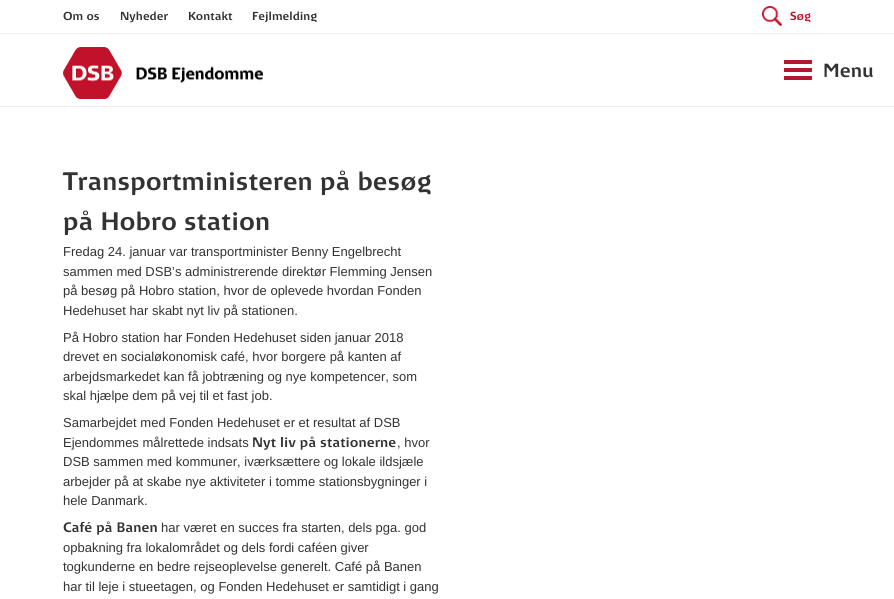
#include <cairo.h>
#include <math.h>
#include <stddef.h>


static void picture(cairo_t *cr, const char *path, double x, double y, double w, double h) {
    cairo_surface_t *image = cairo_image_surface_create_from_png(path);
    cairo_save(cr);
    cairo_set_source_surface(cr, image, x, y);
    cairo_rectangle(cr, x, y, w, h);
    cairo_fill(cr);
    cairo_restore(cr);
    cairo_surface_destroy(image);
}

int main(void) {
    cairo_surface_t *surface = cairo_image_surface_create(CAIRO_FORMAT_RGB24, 894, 599);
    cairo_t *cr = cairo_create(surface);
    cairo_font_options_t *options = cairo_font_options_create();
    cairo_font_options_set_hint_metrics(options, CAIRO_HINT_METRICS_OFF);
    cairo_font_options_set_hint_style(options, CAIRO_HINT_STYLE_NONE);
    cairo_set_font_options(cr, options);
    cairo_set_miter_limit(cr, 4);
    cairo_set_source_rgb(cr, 1, 1, 1);
    cairo_paint(cr);
    cairo_set_source_rgb(cr, 0.914, 0.929, 0.922);
    cairo_rectangle(cr, 0, 33, 894, 1);
    cairo_fill(cr);
    cairo_select_font_face(cr, "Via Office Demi", CAIRO_FONT_SLANT_ITALIC, CAIRO_FONT_WEIGHT_NORMAL);
    cairo_set_font_size(cr, 11);
    cairo_set_source_rgb(cr, 0.2, 0.2, 0.2);
    cairo_move_to(cr, 63, 20);
    cairo_show_text(cr, "Om os");
    cairo_move_to(cr, 120, 20);
    cairo_show_text(cr, "Nyheder");
    cairo_move_to(cr, 188, 20);
    cairo_show_text(cr, "Kontakt");
    cairo_move_to(cr, 252, 20);
    cairo_show_text(cr, "Fejlmelding");
    picture(cr, "img1.png", 762, 6, 20, 20);
    cairo_set_source_rgb(cr, 0.761, 0.067, 0.169);
    cairo_move_to(cr, 790, 20);
    cairo_show_text(cr, "Søg");
    cairo_set_source_rgb(cr, 0.914, 0.929, 0.922);
    cairo_rectangle(cr, 0, 106, 894, 1);
    cairo_fill(cr);
    picture(cr, "img2.png", 63, 47, 200, 52);
    picture(cr, "img3.png", 784, 60, 28, 20);
    cairo_select_font_face(cr, "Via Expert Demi", CAIRO_FONT_SLANT_NORMAL, CAIRO_FONT_WEIGHT_NORMAL);
    cairo_set_font_size(cr, 18);
    cairo_set_source_rgb(cr, 0.2, 0.2, 0.2);
    cairo_move_to(cr, 823, 77);
    cairo_show_text(cr, "Menu");
    cairo_set_font_size(cr, 24);
    cairo_move_to(cr, 63, 190);
    cairo_show_text(cr, "Transportministeren på besøg");
    cairo_move_to(cr, 63, 230);
    cairo_show_text(cr, "på Hobro station");
    cairo_select_font_face(cr, "Liberation Sans", CAIRO_FONT_SLANT_NORMAL, CAIRO_FONT_WEIGHT_NORMAL);
    cairo_set_font_size(cr, 13);
    cairo_move_to(cr, 63, 256);
    cairo_show_text(cr, "Fredag 24. januar var transportminister Benny Engelbrecht");
    cairo_move_to(cr, 63, 276);
    cairo_show_text(cr, "sammen med DSB’s administrerende direktør Flemming Jensen");
    cairo_move_to(cr, 63, 295);
    cairo_show_text(cr, "på besøg på Hobro station, hvor de oplevede hvordan Fonden");
    cairo_move_to(cr, 63, 315);
    cairo_show_text(cr, "Hedehuset har skabt nyt liv på stationen.");
    cairo_move_to(cr, 63, 342);
    cairo_show_text(cr, "På Hobro station har Fonden Hedehuset siden januar 2018");
    cairo_move_to(cr, 63, 361);
    cairo_show_text(cr, "drevet en socialøkonomisk café, hvor borgere på kanten af");
    cairo_move_to(cr, 63, 381);
    cairo_show_text(cr, "arbejdsmarkedet kan få jobtræning og nye kompetencer, som");
    cairo_move_to(cr, 63, 400);
    cairo_show_text(cr, "skal hjælpe dem på vej til et fast job.");
    cairo_move_to(cr, 63, 427);
    cairo_show_text(cr, "Samarbejdet med Fonden Hedehuset er et resultat af DSB");
    cairo_move_to(cr, 63, 447);
    cairo_show_text(cr, "Ejendommes målrettede indsats");
    cairo_select_font_face(cr, "Via Office Demi", CAIRO_FONT_SLANT_ITALIC, CAIRO_FONT_WEIGHT_NORMAL);
    cairo_move_to(cr, 252, 447);
    cairo_show_text(cr, "Nyt liv på stationerne");
    cairo_select_font_face(cr, "Liberation Sans", CAIRO_FONT_SLANT_NORMAL, CAIRO_FONT_WEIGHT_NORMAL);
    cairo_move_to(cr, 397, 447);
    cairo_show_text(cr, ", hvor");
    cairo_move_to(cr, 63, 466);
    cairo_show_text(cr, "DSB sammen med kommuner, iværksættere og lokale ildsjæle");
    cairo_move_to(cr, 63, 486);
    cairo_show_text(cr, "arbejder på at skabe nye aktiviteter i tomme stationsbygninger i");
    cairo_move_to(cr, 63, 505);
    cairo_show_text(cr, "hele Danmark.");
    cairo_select_font_face(cr, "Via Office Demi", CAIRO_FONT_SLANT_ITALIC, CAIRO_FONT_WEIGHT_NORMAL);
    cairo_move_to(cr, 63, 532);
    cairo_show_text(cr, "Café på Banen");
    cairo_select_font_face(cr, "Liberation Sans", CAIRO_FONT_SLANT_NORMAL, CAIRO_FONT_WEIGHT_NORMAL);
    cairo_move_to(cr, 161, 532);
    cairo_show_text(cr, "har været en succes fra starten, dels pga. god");
    cairo_move_to(cr, 63, 552);
    cairo_show_text(cr, "opbakning fra lokalområdet og dels fordi caféen giver");
    cairo_move_to(cr, 63, 571);
    cairo_show_text(cr, "togkunderne en bedre rejseoplevelse generelt. Café på Banen");
    cairo_move_to(cr, 63, 591);
    cairo_show_text(cr, "har til leje i stueetagen, og Fonden Hedehuset er samtidigt i gang");
    cairo_surface_write_to_png(surface, "page.png");
    cairo_font_options_destroy(options);
    cairo_destroy(cr);
    cairo_surface_destroy(surface);
    return 0;
}
